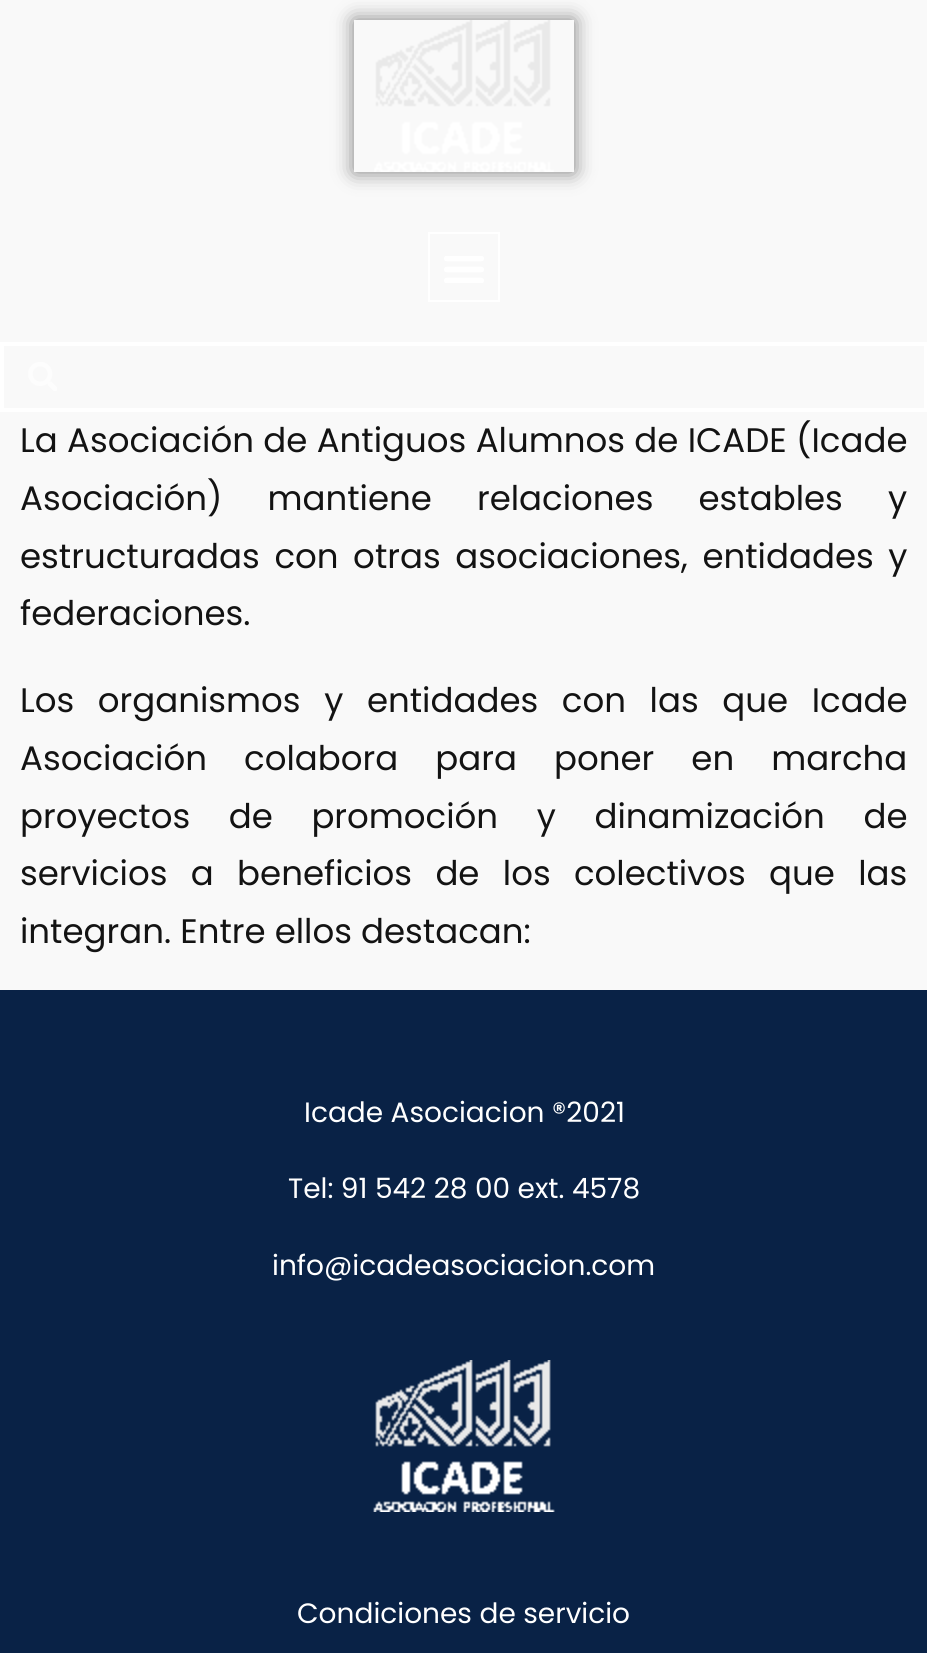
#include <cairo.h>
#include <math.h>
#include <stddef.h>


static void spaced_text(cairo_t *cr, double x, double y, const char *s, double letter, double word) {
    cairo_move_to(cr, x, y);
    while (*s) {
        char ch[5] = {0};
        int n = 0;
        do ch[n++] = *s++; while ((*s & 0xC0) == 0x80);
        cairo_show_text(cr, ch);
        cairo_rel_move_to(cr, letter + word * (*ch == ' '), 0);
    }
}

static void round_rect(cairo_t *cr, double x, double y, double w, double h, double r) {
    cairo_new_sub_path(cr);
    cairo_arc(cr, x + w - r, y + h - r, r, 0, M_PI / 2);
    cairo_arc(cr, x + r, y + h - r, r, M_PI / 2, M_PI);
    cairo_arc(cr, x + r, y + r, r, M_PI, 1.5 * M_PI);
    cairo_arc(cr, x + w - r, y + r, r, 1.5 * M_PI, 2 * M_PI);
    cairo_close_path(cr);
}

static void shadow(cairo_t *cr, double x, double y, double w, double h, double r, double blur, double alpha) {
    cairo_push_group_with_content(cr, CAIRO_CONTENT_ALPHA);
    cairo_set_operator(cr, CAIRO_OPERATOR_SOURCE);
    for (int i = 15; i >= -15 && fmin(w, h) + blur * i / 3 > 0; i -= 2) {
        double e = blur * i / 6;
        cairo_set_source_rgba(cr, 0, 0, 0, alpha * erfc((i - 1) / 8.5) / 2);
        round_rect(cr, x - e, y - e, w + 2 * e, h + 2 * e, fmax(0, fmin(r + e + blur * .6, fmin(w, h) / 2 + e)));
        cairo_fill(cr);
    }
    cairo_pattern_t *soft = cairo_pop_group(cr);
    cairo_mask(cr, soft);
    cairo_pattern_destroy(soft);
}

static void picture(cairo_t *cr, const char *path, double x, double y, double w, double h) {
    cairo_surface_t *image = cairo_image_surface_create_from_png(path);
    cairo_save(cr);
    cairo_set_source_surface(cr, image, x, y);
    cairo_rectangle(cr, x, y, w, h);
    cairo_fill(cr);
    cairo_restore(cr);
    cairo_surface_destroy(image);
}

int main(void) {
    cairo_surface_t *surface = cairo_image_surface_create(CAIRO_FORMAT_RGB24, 927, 1653);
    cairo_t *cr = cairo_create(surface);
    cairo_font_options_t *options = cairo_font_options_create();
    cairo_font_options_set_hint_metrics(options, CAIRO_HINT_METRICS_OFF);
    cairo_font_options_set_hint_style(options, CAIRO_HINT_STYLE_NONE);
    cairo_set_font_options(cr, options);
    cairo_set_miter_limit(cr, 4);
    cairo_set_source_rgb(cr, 0.973, 0.973, 0.973);
    cairo_paint(cr);
    cairo_save(cr);
    cairo_set_fill_rule(cr, CAIRO_FILL_RULE_EVEN_ODD);
    cairo_new_path(cr);
    cairo_move_to(cr, 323, 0);
    cairo_line_to(cr, 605, 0);
    cairo_line_to(cr, 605, 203);
    cairo_line_to(cr, 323, 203);
    cairo_close_path(cr);
    cairo_move_to(cr, 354, 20);
    cairo_line_to(cr, 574, 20);
    cairo_line_to(cr, 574, 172);
    cairo_line_to(cr, 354, 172);
    cairo_close_path(cr);
    cairo_clip(cr);
    cairo_set_source_rgb(cr, 0, 0, 0);
    shadow(cr, 354, 20, 220, 152, 0, 10, 0.5);
    cairo_restore(cr);
    picture(cr, "img1.png", 374, 20, 180, 152);
    cairo_rectangle(cr, 429, 233, 70, 68);
    cairo_set_source_rgb(cr, 1, 1, 1);
    cairo_stroke(cr);
    picture(cr, "img2.png", 444, 256, 40, 27);
    cairo_rectangle(cr, 2, 344, 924, 66);
    cairo_set_line_width(cr, 4);
    cairo_stroke(cr);
    picture(cr, "img3.png", 28, 362, 29, 29);
    cairo_select_font_face(cr, "Poppins", CAIRO_FONT_SLANT_NORMAL, CAIRO_FONT_WEIGHT_NORMAL);
    cairo_set_font_size(cr, 34);
    cairo_set_source_rgb(cr, 0.075, 0.075, 0.075);
    spaced_text(cr, 20, 452, "La Asociación de Antiguos Alumnos de ICADE (Icade", 0, 0.25);
    spaced_text(cr, 20, 510, "Asociación) mantiene relaciones estables y", 0, 36);
    spaced_text(cr, 20, 568, "estructuradas con otras asociaciones, entidades y", 0, 5.5);
    cairo_move_to(cr, 20, 625);
    cairo_show_text(cr, "federaciones.");
    spaced_text(cr, 20, 712, "Los organismos y entidades con las que Icade", 0, 14.5);
    spaced_text(cr, 20, 770, "Asociación colabora para poner en marcha", 0, 28);
    spaced_text(cr, 20, 828, "proyectos de promoción y dinamización de", 0, 29.5);
    spaced_text(cr, 20, 885, "servicios a beneficios de los colectivos que las", 0, 14.25);
    cairo_move_to(cr, 20, 943);
    cairo_show_text(cr, "integran. Entre ellos destacan:");
    cairo_set_source_rgb(cr, 0.039, 0.133, 0.275);
    cairo_rectangle(cr, 0, 990, 927, 663);
    cairo_fill(cr);
    cairo_set_font_size(cr, 28);
    cairo_set_source_rgb(cr, 1, 1, 1);
    cairo_move_to(cr, 304, 1122);
    cairo_show_text(cr, "Icade Asociacion ®2021");
    cairo_move_to(cr, 288, 1198);
    cairo_show_text(cr, "Tel: 91 542 28 00 ext. 4578");
    cairo_move_to(cr, 272, 1275);
    cairo_show_text(cr, "info@icadeasociacion.com");
    picture(cr, "img4.png", 373, 1360, 182, 152);
    cairo_move_to(cr, 297, 1623);
    cairo_show_text(cr, "Condiciones de servicio");
    cairo_surface_write_to_png(surface, "page.png");
    cairo_font_options_destroy(options);
    cairo_destroy(cr);
    cairo_surface_destroy(surface);
    return 0;
}
